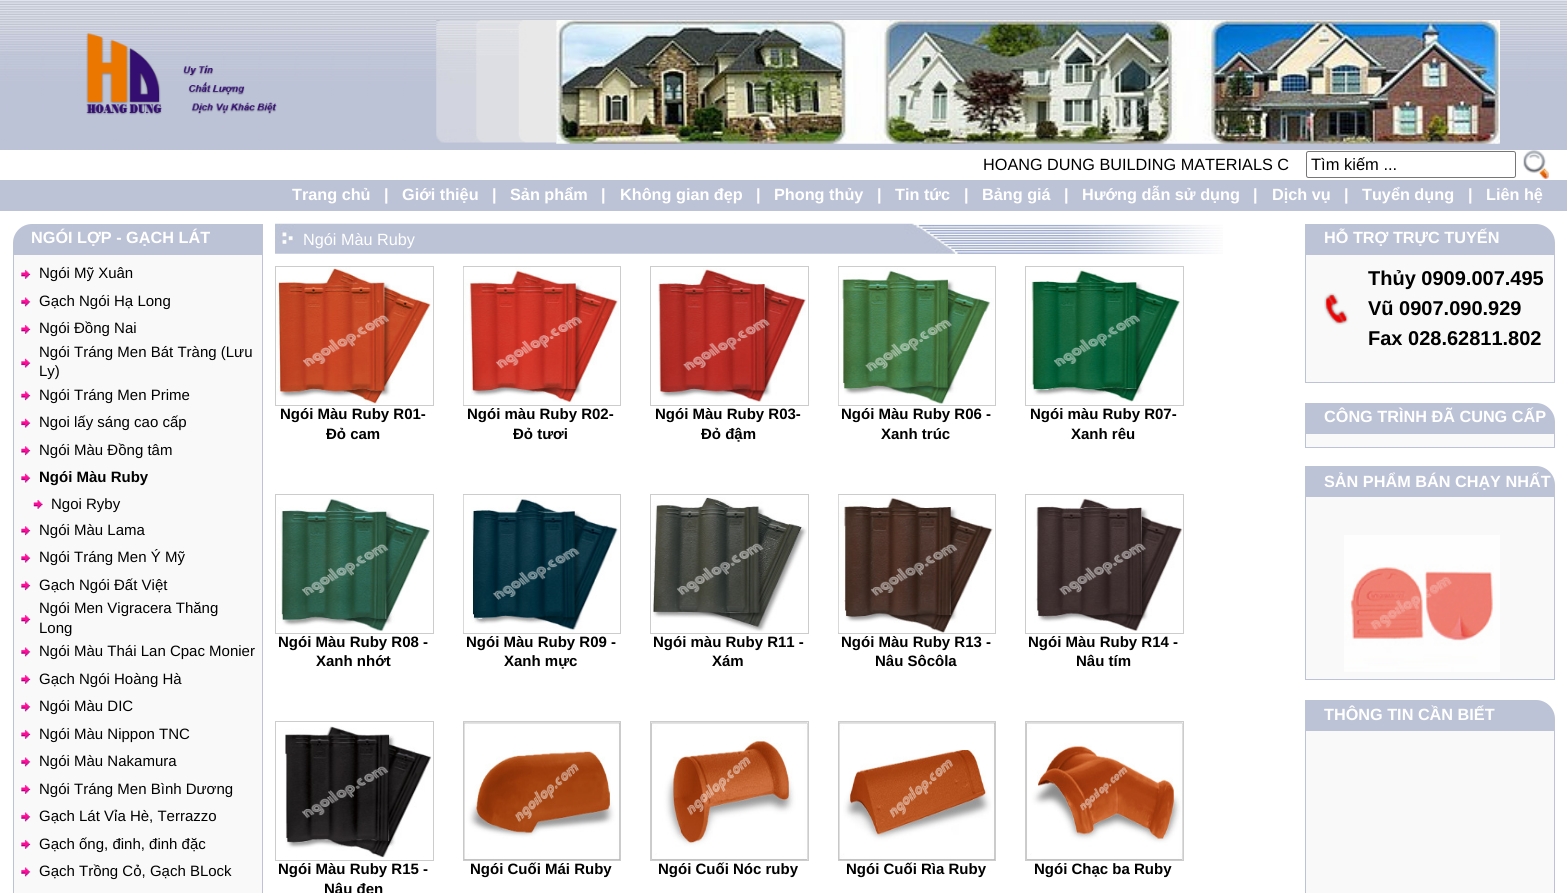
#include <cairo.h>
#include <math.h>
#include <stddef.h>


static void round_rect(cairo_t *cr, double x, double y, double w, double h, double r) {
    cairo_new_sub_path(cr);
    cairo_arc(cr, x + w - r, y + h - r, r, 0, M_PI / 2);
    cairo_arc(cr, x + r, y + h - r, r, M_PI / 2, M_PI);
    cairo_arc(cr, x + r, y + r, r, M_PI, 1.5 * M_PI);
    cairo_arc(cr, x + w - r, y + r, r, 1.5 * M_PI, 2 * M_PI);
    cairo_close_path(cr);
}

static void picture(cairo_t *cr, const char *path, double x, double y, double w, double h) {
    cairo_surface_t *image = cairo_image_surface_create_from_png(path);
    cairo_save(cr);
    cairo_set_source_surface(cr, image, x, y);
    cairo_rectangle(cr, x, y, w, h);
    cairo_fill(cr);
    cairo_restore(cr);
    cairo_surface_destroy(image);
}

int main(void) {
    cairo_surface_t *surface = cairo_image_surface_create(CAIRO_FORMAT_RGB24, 1567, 893);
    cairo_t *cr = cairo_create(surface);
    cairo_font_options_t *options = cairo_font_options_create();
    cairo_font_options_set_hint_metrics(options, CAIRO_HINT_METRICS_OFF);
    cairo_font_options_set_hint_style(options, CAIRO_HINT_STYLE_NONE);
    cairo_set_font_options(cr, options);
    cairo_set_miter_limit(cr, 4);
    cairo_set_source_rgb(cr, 1, 1, 1);
    cairo_paint(cr);
    picture(cr, "img1.png", 0, 0, 1567, 150);
    picture(cr, "img2.png", 86, 33, 191, 82);
    picture(cr, "img3.png", 436, 20, 121, 123);
    picture(cr, "img4.png", 556, 20, 944, 124);
    cairo_select_font_face(cr, "Liberation Sans", CAIRO_FONT_SLANT_NORMAL, CAIRO_FONT_WEIGHT_NORMAL);
    cairo_set_font_size(cr, 16.25);
    cairo_set_source_rgb(cr, 0, 0, 0);
    cairo_move_to(cr, 983, 170);
    cairo_show_text(cr, "HOANG DUNG BUILDING MATERIALS C");
    round_rect(cr, 1306.5, 151.5, 209, 26, 2);
    cairo_set_source_rgb(cr, 0.463, 0.463, 0.463);
    cairo_set_line_width(cr, 1);
    cairo_stroke(cr);
    cairo_set_font_size(cr, 16.5);
    cairo_set_source_rgb(cr, 0, 0, 0);
    cairo_move_to(cr, 1311, 170);
    cairo_show_text(cr, "Tìm kiếm ...");
    picture(cr, "img5.png", 1523, 150, 26, 29);
    cairo_set_source_rgb(cr, 0.741, 0.765, 0.839);
    cairo_rectangle(cr, 0, 180, 1567, 31);
    cairo_fill(cr);
    cairo_select_font_face(cr, "Liberation Sans", CAIRO_FONT_SLANT_NORMAL, CAIRO_FONT_WEIGHT_BOLD);
    cairo_set_font_size(cr, 16.25);
    cairo_set_source_rgb(cr, 1, 1, 1);
    cairo_move_to(cr, 292, 200);
    cairo_show_text(cr, "Trang chủ");
    cairo_move_to(cr, 384, 200);
    cairo_show_text(cr, "|");
    cairo_move_to(cr, 402, 200);
    cairo_show_text(cr, "Giới thiệu");
    cairo_move_to(cr, 492, 200);
    cairo_show_text(cr, "|");
    cairo_move_to(cr, 510, 200);
    cairo_show_text(cr, "Sản phẩm");
    cairo_move_to(cr, 601, 200);
    cairo_show_text(cr, "|");
    cairo_move_to(cr, 620, 200);
    cairo_show_text(cr, "Không gian đẹp");
    cairo_move_to(cr, 756, 200);
    cairo_show_text(cr, "|");
    cairo_move_to(cr, 774, 200);
    cairo_show_text(cr, "Phong thủy");
    cairo_move_to(cr, 877, 200);
    cairo_show_text(cr, "|");
    cairo_move_to(cr, 895, 200);
    cairo_show_text(cr, "Tin tức");
    cairo_move_to(cr, 964, 200);
    cairo_show_text(cr, "|");
    cairo_move_to(cr, 982, 200);
    cairo_show_text(cr, "Bảng giá");
    cairo_move_to(cr, 1064, 200);
    cairo_show_text(cr, "|");
    cairo_move_to(cr, 1082, 200);
    cairo_show_text(cr, "Hướng dẫn sử dụng");
    cairo_move_to(cr, 1253, 200);
    cairo_show_text(cr, "|");
    cairo_move_to(cr, 1272, 200);
    cairo_show_text(cr, "Dịch vụ");
    cairo_move_to(cr, 1344, 200);
    cairo_show_text(cr, "|");
    cairo_move_to(cr, 1362, 200);
    cairo_show_text(cr, "Tuyển dụng");
    cairo_move_to(cr, 1468, 200);
    cairo_show_text(cr, "|");
    cairo_move_to(cr, 1486, 200);
    cairo_show_text(cr, "Liên hệ");
    cairo_set_source_rgb(cr, 0.741, 0.765, 0.839);
    cairo_new_path(cr);
    cairo_move_to(cr, 32, 224);
    cairo_line_to(cr, 263, 224);
    cairo_line_to(cr, 263, 254);
    cairo_line_to(cr, 13, 254);
    cairo_line_to(cr, 13, 243);
    cairo_curve_to(cr, 13, 232.5, 21.5, 224, 32, 224);
    cairo_close_path(cr);
    cairo_fill(cr);
    cairo_set_source_rgb(cr, 1, 1, 1);
    cairo_move_to(cr, 31, 243);
    cairo_show_text(cr, "NGÓI LỢP - GẠCH LÁT");
    cairo_set_source_rgb(cr, 0.973, 0.973, 0.976);
    cairo_rectangle(cr, 13.5, 254.5, 249, 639);
    cairo_fill_preserve(cr);
    cairo_set_source_rgb(cr, 0.741, 0.765, 0.839);
    cairo_stroke(cr);
    picture(cr, "img6.png", 20, 269, 11, 11);
    cairo_select_font_face(cr, "Liberation Sans", CAIRO_FONT_SLANT_NORMAL, CAIRO_FONT_WEIGHT_NORMAL);
    cairo_set_font_size(cr, 15);
    cairo_set_source_rgb(cr, 0, 0, 0);
    cairo_move_to(cr, 39, 278);
    cairo_show_text(cr, "Ngói Mỹ Xuân");
    picture(cr, "img7.png", 20, 296, 11, 11);
    cairo_move_to(cr, 39, 306);
    cairo_show_text(cr, "Gạch Ngói Hạ Long");
    picture(cr, "img6.png", 20, 324, 11, 11);
    cairo_move_to(cr, 39, 333);
    cairo_show_text(cr, "Ngói Đồng Nai");
    picture(cr, "img8.png", 20, 358, 11, 11);
    cairo_move_to(cr, 39, 357);
    cairo_show_text(cr, "Ngói Tráng Men Bát Tràng (Lưu");
    cairo_move_to(cr, 39, 376);
    cairo_show_text(cr, "Ly)");
    picture(cr, "img9.png", 20, 390, 11, 11);
    cairo_move_to(cr, 39, 400);
    cairo_show_text(cr, "Ngói Tráng Men Prime");
    picture(cr, "img8.png", 20, 418, 11, 11);
    cairo_move_to(cr, 39, 427);
    cairo_show_text(cr, "Ngoi lấy sáng cao cấp");
    picture(cr, "img9.png", 20, 445, 11, 11);
    cairo_move_to(cr, 39, 455);
    cairo_show_text(cr, "Ngói Màu Đồng tâm");
    picture(cr, "img8.png", 20, 473, 11, 11);
    cairo_select_font_face(cr, "Liberation Sans", CAIRO_FONT_SLANT_NORMAL, CAIRO_FONT_WEIGHT_BOLD);
    cairo_move_to(cr, 39, 482);
    cairo_show_text(cr, "Ngói Màu Ruby");
    picture(cr, "img10.png", 33, 499, 11, 11);
    cairo_select_font_face(cr, "Liberation Sans", CAIRO_FONT_SLANT_NORMAL, CAIRO_FONT_WEIGHT_NORMAL);
    cairo_move_to(cr, 51, 509);
    cairo_show_text(cr, "Ngoi Ryby");
    picture(cr, "img9.png", 20, 525, 11, 11);
    cairo_move_to(cr, 39, 535);
    cairo_show_text(cr, "Ngói Màu Lama");
    picture(cr, "img8.png", 20, 553, 11, 11);
    cairo_move_to(cr, 39, 562);
    cairo_show_text(cr, "Ngói Tráng Men Ý Mỹ");
    picture(cr, "img9.png", 20, 580, 11, 11);
    cairo_move_to(cr, 39, 590);
    cairo_show_text(cr, "Gạch Ngói Đất Việt");
    picture(cr, "img6.png", 20, 614, 11, 11);
    cairo_move_to(cr, 39, 613);
    cairo_show_text(cr, "Ngói Men Vigracera Thăng");
    cairo_move_to(cr, 39, 633);
    cairo_show_text(cr, "Long");
    picture(cr, "img7.png", 20, 646, 11, 11);
    cairo_move_to(cr, 39, 656);
    cairo_show_text(cr, "Ngói Màu Thái Lan Cpac Monier");
    picture(cr, "img6.png", 20, 674, 11, 11);
    cairo_move_to(cr, 39, 684);
    cairo_show_text(cr, "Gạch Ngói Hoàng Hà");
    picture(cr, "img7.png", 20, 701, 11, 11);
    cairo_move_to(cr, 39, 711);
    cairo_show_text(cr, "Ngói Màu DIC");
    picture(cr, "img6.png", 20, 729, 11, 11);
    cairo_move_to(cr, 39, 739);
    cairo_show_text(cr, "Ngói Màu Nippon TNC");
    picture(cr, "img7.png", 20, 756, 11, 11);
    cairo_move_to(cr, 39, 766);
    cairo_show_text(cr, "Ngói Màu Nakamura");
    picture(cr, "img6.png", 20, 784, 11, 11);
    cairo_move_to(cr, 39, 794);
    cairo_show_text(cr, "Ngói Tráng Men Bình Dương");
    picture(cr, "img7.png", 20, 811, 11, 11);
    cairo_move_to(cr, 39, 821);
    cairo_show_text(cr, "Gạch Lát Vỉa Hè, Terrazzo");
    picture(cr, "img6.png", 20, 839, 11, 11);
    cairo_move_to(cr, 39, 849);
    cairo_show_text(cr, "Gạch ống, đinh, đinh đặc");
    picture(cr, "img7.png", 20, 866, 11, 11);
    cairo_move_to(cr, 39, 876);
    cairo_show_text(cr, "Gạch Trồng Cỏ, Gạch BLock");
    picture(cr, "img11.png", 275, 223, 948, 31);
    cairo_set_font_size(cr, 16.25);
    cairo_set_source_rgb(cr, 1, 1, 1);
    cairo_move_to(cr, 303, 245);
    cairo_show_text(cr, "Ngói Màu Ruby");
    cairo_rectangle(cr, 275.5, 266.5, 158, 139);
    cairo_set_source_rgb(cr, 0.8, 0.8, 0.8);
    cairo_stroke(cr);
    picture(cr, "img12.png", 276, 267, 156, 138);
    cairo_select_font_face(cr, "Liberation Sans", CAIRO_FONT_SLANT_NORMAL, CAIRO_FONT_WEIGHT_BOLD);
    cairo_set_font_size(cr, 15);
    cairo_set_source_rgb(cr, 0, 0, 0);
    cairo_move_to(cr, 280, 419);
    cairo_show_text(cr, "Ngói Màu Ruby R01-");
    cairo_move_to(cr, 326, 439);
    cairo_show_text(cr, "Đỏ cam");
    cairo_rectangle(cr, 463.5, 266.5, 157, 139);
    cairo_set_source_rgb(cr, 0.8, 0.8, 0.8);
    cairo_stroke(cr);
    picture(cr, "img13.png", 463, 267, 156, 138);
    cairo_set_source_rgb(cr, 0, 0, 0);
    cairo_move_to(cr, 467, 419);
    cairo_show_text(cr, "Ngói màu Ruby R02-");
    cairo_move_to(cr, 513, 439);
    cairo_show_text(cr, "Đỏ tươi");
    cairo_rectangle(cr, 650.5, 266.5, 158, 139);
    cairo_set_source_rgb(cr, 0.8, 0.8, 0.8);
    cairo_stroke(cr);
    picture(cr, "img14.png", 658, 268, 148, 135);
    cairo_set_source_rgb(cr, 0, 0, 0);
    cairo_move_to(cr, 655, 419);
    cairo_show_text(cr, "Ngói Màu Ruby R03-");
    cairo_move_to(cr, 701, 439);
    cairo_show_text(cr, "Đỏ đậm");
    cairo_rectangle(cr, 838.5, 266.5, 157, 139);
    cairo_set_source_rgb(cr, 0.8, 0.8, 0.8);
    cairo_stroke(cr);
    picture(cr, "img15.png", 838, 267, 156, 138);
    cairo_set_source_rgb(cr, 0, 0, 0);
    cairo_move_to(cr, 841, 419);
    cairo_show_text(cr, "Ngói Màu Ruby R06 -");
    cairo_move_to(cr, 881, 439);
    cairo_show_text(cr, "Xanh trúc");
    cairo_rectangle(cr, 1025.5, 266.5, 158, 139);
    cairo_set_source_rgb(cr, 0.8, 0.8, 0.8);
    cairo_stroke(cr);
    picture(cr, "img16.png", 1028, 268, 154, 134);
    cairo_set_source_rgb(cr, 0, 0, 0);
    cairo_move_to(cr, 1030, 419);
    cairo_show_text(cr, "Ngói màu Ruby R07-");
    cairo_move_to(cr, 1071, 439);
    cairo_show_text(cr, "Xanh rêu");
    cairo_rectangle(cr, 275.5, 494.5, 158, 139);
    cairo_set_source_rgb(cr, 0.8, 0.8, 0.8);
    cairo_stroke(cr);
    picture(cr, "img17.png", 277, 498, 154, 134);
    cairo_set_source_rgb(cr, 0, 0, 0);
    cairo_move_to(cr, 278, 647);
    cairo_show_text(cr, "Ngói Màu Ruby R08 -");
    cairo_move_to(cr, 316, 666);
    cairo_show_text(cr, "Xanh nhớt");
    cairo_rectangle(cr, 463.5, 494.5, 157, 139);
    cairo_set_source_rgb(cr, 0.8, 0.8, 0.8);
    cairo_stroke(cr);
    picture(cr, "img18.png", 463, 495, 156, 138);
    cairo_set_source_rgb(cr, 0, 0, 0);
    cairo_move_to(cr, 466, 647);
    cairo_show_text(cr, "Ngói Màu Ruby R09 -");
    cairo_move_to(cr, 504, 666);
    cairo_show_text(cr, "Xanh mực");
    cairo_rectangle(cr, 650.5, 494.5, 158, 139);
    cairo_set_source_rgb(cr, 0.8, 0.8, 0.8);
    cairo_stroke(cr);
    picture(cr, "img19.png", 652, 497, 155, 135);
    cairo_set_source_rgb(cr, 0, 0, 0);
    cairo_move_to(cr, 653, 647);
    cairo_show_text(cr, "Ngói màu Ruby R11 -");
    cairo_move_to(cr, 712, 666);
    cairo_show_text(cr, "Xám");
    cairo_rectangle(cr, 838.5, 494.5, 157, 139);
    cairo_set_source_rgb(cr, 0.8, 0.8, 0.8);
    cairo_stroke(cr);
    picture(cr, "img20.png", 838, 495, 156, 138);
    cairo_set_source_rgb(cr, 0, 0, 0);
    cairo_move_to(cr, 841, 647);
    cairo_show_text(cr, "Ngói Màu Ruby R13 -");
    cairo_move_to(cr, 875, 666);
    cairo_show_text(cr, "Nâu Sôcôla");
    cairo_rectangle(cr, 1025.5, 494.5, 158, 139);
    cairo_set_source_rgb(cr, 0.8, 0.8, 0.8);
    cairo_stroke(cr);
    picture(cr, "img21.png", 1034, 498, 149, 133);
    cairo_set_source_rgb(cr, 0, 0, 0);
    cairo_move_to(cr, 1028, 647);
    cairo_show_text(cr, "Ngói Màu Ruby R14 -");
    cairo_move_to(cr, 1076, 666);
    cairo_show_text(cr, "Nâu tím");
    cairo_rectangle(cr, 275.5, 721.5, 158, 139);
    cairo_set_source_rgb(cr, 0.8, 0.8, 0.8);
    cairo_stroke(cr);
    picture(cr, "img22.png", 285, 726, 147, 132);
    cairo_set_source_rgb(cr, 0, 0, 0);
    cairo_move_to(cr, 278, 874);
    cairo_show_text(cr, "Ngói Màu Ruby R15 -");
    cairo_move_to(cr, 324, 894);
    cairo_show_text(cr, "Nâu đen");
    cairo_rectangle(cr, 463.5, 721.5, 157, 139);
    cairo_set_source_rgb(cr, 0.8, 0.8, 0.8);
    cairo_stroke(cr);
    picture(cr, "img23.png", 463, 722, 157, 138);
    cairo_set_source_rgb(cr, 0, 0, 0);
    cairo_move_to(cr, 470, 874);
    cairo_show_text(cr, "Ngói Cuối Mái Ruby");
    cairo_rectangle(cr, 650.5, 721.5, 158, 139);
    cairo_set_source_rgb(cr, 0.8, 0.8, 0.8);
    cairo_stroke(cr);
    picture(cr, "img24.png", 651, 722, 157, 138);
    cairo_set_source_rgb(cr, 0, 0, 0);
    cairo_move_to(cr, 658, 874);
    cairo_show_text(cr, "Ngói Cuối Nóc ruby");
    cairo_rectangle(cr, 838.5, 721.5, 157, 139);
    cairo_set_source_rgb(cr, 0.8, 0.8, 0.8);
    cairo_stroke(cr);
    picture(cr, "img25.png", 838, 722, 157, 138);
    cairo_set_source_rgb(cr, 0, 0, 0);
    cairo_move_to(cr, 846, 874);
    cairo_show_text(cr, "Ngói Cuối Rìa Ruby");
    cairo_rectangle(cr, 1025.5, 721.5, 158, 139);
    cairo_set_source_rgb(cr, 0.8, 0.8, 0.8);
    cairo_stroke(cr);
    picture(cr, "img26.png", 1026, 722, 157, 138);
    cairo_set_source_rgb(cr, 0, 0, 0);
    cairo_move_to(cr, 1034, 874);
    cairo_show_text(cr, "Ngói Chạc ba Ruby");
    cairo_set_source_rgb(cr, 0.741, 0.765, 0.839);
    cairo_new_path(cr);
    cairo_move_to(cr, 1305, 224);
    cairo_line_to(cr, 1536, 224);
    cairo_curve_to(cr, 1546.5, 224, 1555, 232.5, 1555, 243);
    cairo_line_to(cr, 1555, 254);
    cairo_line_to(cr, 1305, 254);
    cairo_close_path(cr);
    cairo_fill(cr);
    cairo_set_font_size(cr, 16.25);
    cairo_set_source_rgb(cr, 1, 1, 1);
    cairo_move_to(cr, 1324, 243);
    cairo_show_text(cr, "HỖ TRỢ TRỰC TUYẾN");
    cairo_set_source_rgb(cr, 0.973, 0.973, 0.976);
    cairo_rectangle(cr, 1305.5, 254.5, 249, 128);
    cairo_fill_preserve(cr);
    cairo_set_source_rgb(cr, 0.741, 0.765, 0.839);
    cairo_stroke(cr);
    picture(cr, "img27.png", 1324, 293, 25, 32);
    cairo_set_font_size(cr, 20);
    cairo_set_source_rgb(cr, 0, 0, 0);
    cairo_move_to(cr, 1368, 285);
    cairo_show_text(cr, "Thủy 0909.007.495");
    cairo_move_to(cr, 1368, 315);
    cairo_show_text(cr, "Vũ 0907.090.929");
    cairo_move_to(cr, 1368, 345);
    cairo_show_text(cr, "Fax 028.62811.802");
    cairo_set_source_rgb(cr, 0.741, 0.765, 0.839);
    cairo_new_path(cr);
    cairo_move_to(cr, 1305, 403);
    cairo_line_to(cr, 1536, 403);
    cairo_curve_to(cr, 1546.5, 403, 1555, 411.5, 1555, 422);
    cairo_line_to(cr, 1555, 433);
    cairo_line_to(cr, 1305, 433);
    cairo_close_path(cr);
    cairo_fill(cr);
    cairo_set_font_size(cr, 16.25);
    cairo_set_source_rgb(cr, 1, 1, 1);
    cairo_move_to(cr, 1324, 422);
    cairo_show_text(cr, "CÔNG TRÌNH ĐÃ CUNG CẤP");
    cairo_set_source_rgb(cr, 0.973, 0.973, 0.976);
    cairo_rectangle(cr, 1305.5, 433.5, 249, 14);
    cairo_fill_preserve(cr);
    cairo_set_source_rgb(cr, 0.741, 0.765, 0.839);
    cairo_stroke(cr);
    cairo_new_path(cr);
    cairo_move_to(cr, 1305, 466);
    cairo_line_to(cr, 1536, 466);
    cairo_curve_to(cr, 1546.5, 466, 1555, 474.5, 1555, 485);
    cairo_line_to(cr, 1555, 496);
    cairo_line_to(cr, 1305, 496);
    cairo_close_path(cr);
    cairo_fill(cr);
    cairo_set_source_rgb(cr, 1, 1, 1);
    cairo_move_to(cr, 1324, 487);
    cairo_show_text(cr, "SẢN PHẨM BÁN CHẠY NHẤT");
    cairo_set_source_rgb(cr, 0.973, 0.973, 0.976);
    cairo_rectangle(cr, 1305.5, 496.5, 249, 183);
    cairo_fill_preserve(cr);
    cairo_set_source_rgb(cr, 0.741, 0.765, 0.839);
    cairo_stroke(cr);
    picture(cr, "img28.png", 1344, 535, 156, 137);
    cairo_new_path(cr);
    cairo_move_to(cr, 1305, 700);
    cairo_line_to(cr, 1536, 700);
    cairo_curve_to(cr, 1546.5, 700, 1555, 708.5, 1555, 719);
    cairo_line_to(cr, 1555, 730);
    cairo_line_to(cr, 1305, 730);
    cairo_close_path(cr);
    cairo_fill(cr);
    cairo_set_source_rgb(cr, 1, 1, 1);
    cairo_move_to(cr, 1324, 720);
    cairo_show_text(cr, "THÔNG TIN CẦN BIẾT");
    cairo_set_source_rgb(cr, 0.973, 0.973, 0.976);
    cairo_rectangle(cr, 1305.5, 730.5, 249, 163);
    cairo_fill_preserve(cr);
    cairo_set_source_rgb(cr, 0.741, 0.765, 0.839);
    cairo_stroke(cr);
    cairo_surface_write_to_png(surface, "page.png");
    cairo_font_options_destroy(options);
    cairo_destroy(cr);
    cairo_surface_destroy(surface);
    return 0;
}
